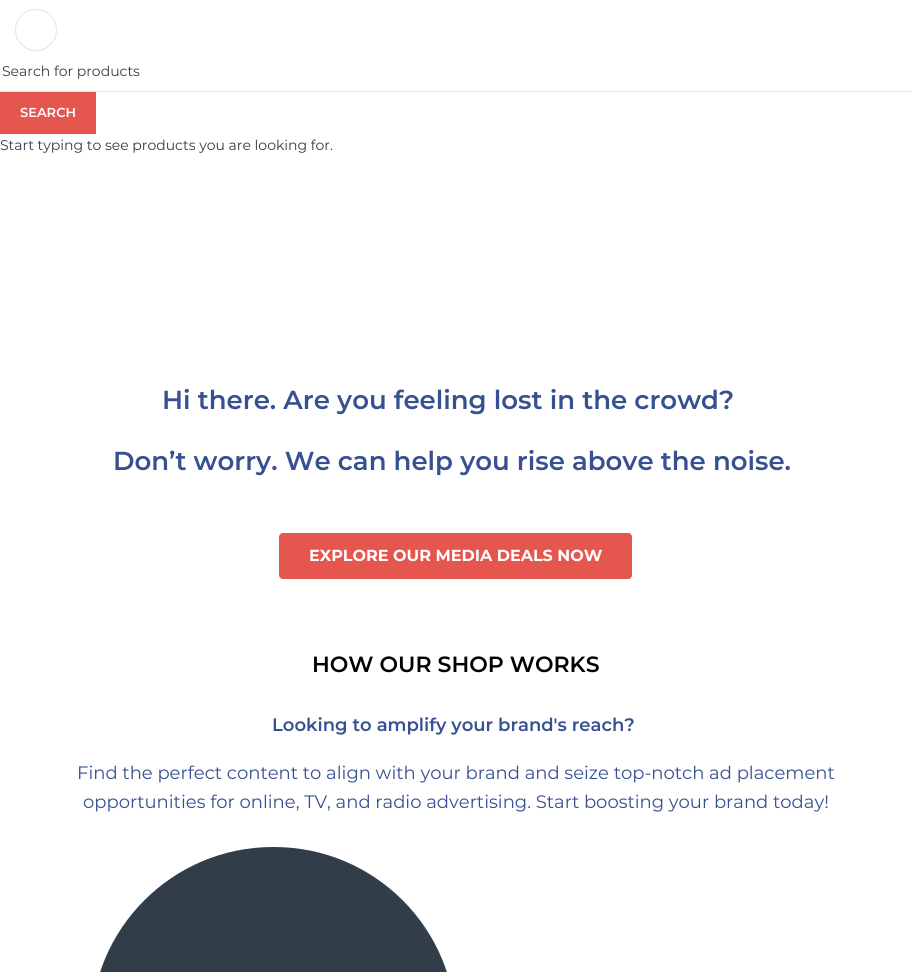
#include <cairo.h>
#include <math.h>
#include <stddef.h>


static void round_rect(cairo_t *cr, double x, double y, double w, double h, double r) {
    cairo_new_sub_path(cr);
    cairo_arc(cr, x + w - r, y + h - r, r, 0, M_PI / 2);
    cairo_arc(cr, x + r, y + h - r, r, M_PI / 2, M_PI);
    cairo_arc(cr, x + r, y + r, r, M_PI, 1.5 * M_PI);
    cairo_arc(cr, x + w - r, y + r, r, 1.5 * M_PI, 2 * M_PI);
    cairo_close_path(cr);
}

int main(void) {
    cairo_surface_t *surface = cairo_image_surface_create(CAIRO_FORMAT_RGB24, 911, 972);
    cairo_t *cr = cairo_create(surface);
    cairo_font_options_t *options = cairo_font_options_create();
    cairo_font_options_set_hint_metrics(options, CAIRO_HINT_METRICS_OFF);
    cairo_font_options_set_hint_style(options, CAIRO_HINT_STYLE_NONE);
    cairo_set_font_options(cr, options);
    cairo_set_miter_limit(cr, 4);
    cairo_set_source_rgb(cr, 1, 1, 1);
    cairo_paint(cr);
    cairo_set_source_rgb(cr, 0.902, 0.902, 0.902);
    cairo_rectangle(cr, 0, 91, 911, 1);
    cairo_fill(cr);
    cairo_select_font_face(cr, "Montserrat", CAIRO_FONT_SLANT_NORMAL, CAIRO_FONT_WEIGHT_NORMAL);
    cairo_set_font_size(cr, 14);
    cairo_set_source_rgb(cr, 0.192, 0.243, 0.29);
    cairo_move_to(cr, 2, 76);
    cairo_show_text(cr, "Search for products");
    cairo_set_source_rgb(cr, 0.894, 0.337, 0.306);
    cairo_rectangle(cr, 0, 92, 96, 42);
    cairo_fill(cr);
    cairo_select_font_face(cr, "Montserrat SemiBold", CAIRO_FONT_SLANT_NORMAL, CAIRO_FONT_WEIGHT_NORMAL);
    cairo_set_font_size(cr, 13);
    cairo_set_source_rgb(cr, 1, 1, 1);
    cairo_move_to(cr, 20, 117);
    cairo_show_text(cr, "SEARCH");
    cairo_select_font_face(cr, "Montserrat", CAIRO_FONT_SLANT_NORMAL, CAIRO_FONT_WEIGHT_NORMAL);
    cairo_set_font_size(cr, 14);
    cairo_set_source_rgb(cr, 0.192, 0.243, 0.29);
    cairo_move_to(cr, 0, 150);
    cairo_show_text(cr, "Start typing to see products you are looking for.");
    cairo_new_path(cr);
    cairo_arc(cr, 36, 30, 20.5, 0, 2 * M_PI);
    cairo_set_source_rgb(cr, 0.894, 0.894, 0.894);
    cairo_set_line_width(cr, 1);
    cairo_stroke(cr);
    cairo_select_font_face(cr, "Montserrat SemiBold", CAIRO_FONT_SLANT_NORMAL, CAIRO_FONT_WEIGHT_NORMAL);
    cairo_set_font_size(cr, 26);
    cairo_set_source_rgb(cr, 0.216, 0.314, 0.573);
    cairo_move_to(cr, 162, 409);
    cairo_show_text(cr, "Hi there. Are you feeling lost in the crowd?");
    cairo_move_to(cr, 113, 470);
    cairo_show_text(cr, "Don’t worry. We can help you rise above the noise.");
    cairo_set_source_rgb(cr, 0.894, 0.337, 0.306);
    round_rect(cr, 279, 533, 353, 46, 4);
    cairo_fill(cr);
    cairo_select_font_face(cr, "Montserrat", CAIRO_FONT_SLANT_NORMAL, CAIRO_FONT_WEIGHT_BOLD);
    cairo_set_font_size(cr, 16);
    cairo_set_source_rgb(cr, 1, 1, 1);
    cairo_move_to(cr, 309, 561);
    cairo_show_text(cr, "EXPLORE OUR MEDIA DEALS NOW");
    cairo_select_font_face(cr, "Montserrat SemiBold", CAIRO_FONT_SLANT_NORMAL, CAIRO_FONT_WEIGHT_NORMAL);
    cairo_set_font_size(cr, 22);
    cairo_set_source_rgb(cr, 0, 0, 0);
    cairo_move_to(cr, 312, 672);
    cairo_show_text(cr, "HOW OUR SHOP WORKS");
    cairo_set_font_size(cr, 18);
    cairo_set_source_rgb(cr, 0.216, 0.314, 0.573);
    cairo_move_to(cr, 272, 731);
    cairo_show_text(cr, "Looking to amplify your brand's reach?");
    cairo_select_font_face(cr, "Montserrat", CAIRO_FONT_SLANT_NORMAL, CAIRO_FONT_WEIGHT_NORMAL);
    cairo_move_to(cr, 77, 779);
    cairo_show_text(cr, "Find the perfect content to align with your brand and seize top-notch ad placement");
    cairo_move_to(cr, 83, 808);
    cairo_show_text(cr, "opportunities for online, TV, and radio advertising. Start boosting your brand today!");
    cairo_set_source_rgb(cr, 0.192, 0.243, 0.29);
    round_rect(cr, 91, 847, 365, 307, 182);
    cairo_fill(cr);
    cairo_surface_write_to_png(surface, "page.png");
    cairo_font_options_destroy(options);
    cairo_destroy(cr);
    cairo_surface_destroy(surface);
    return 0;
}
